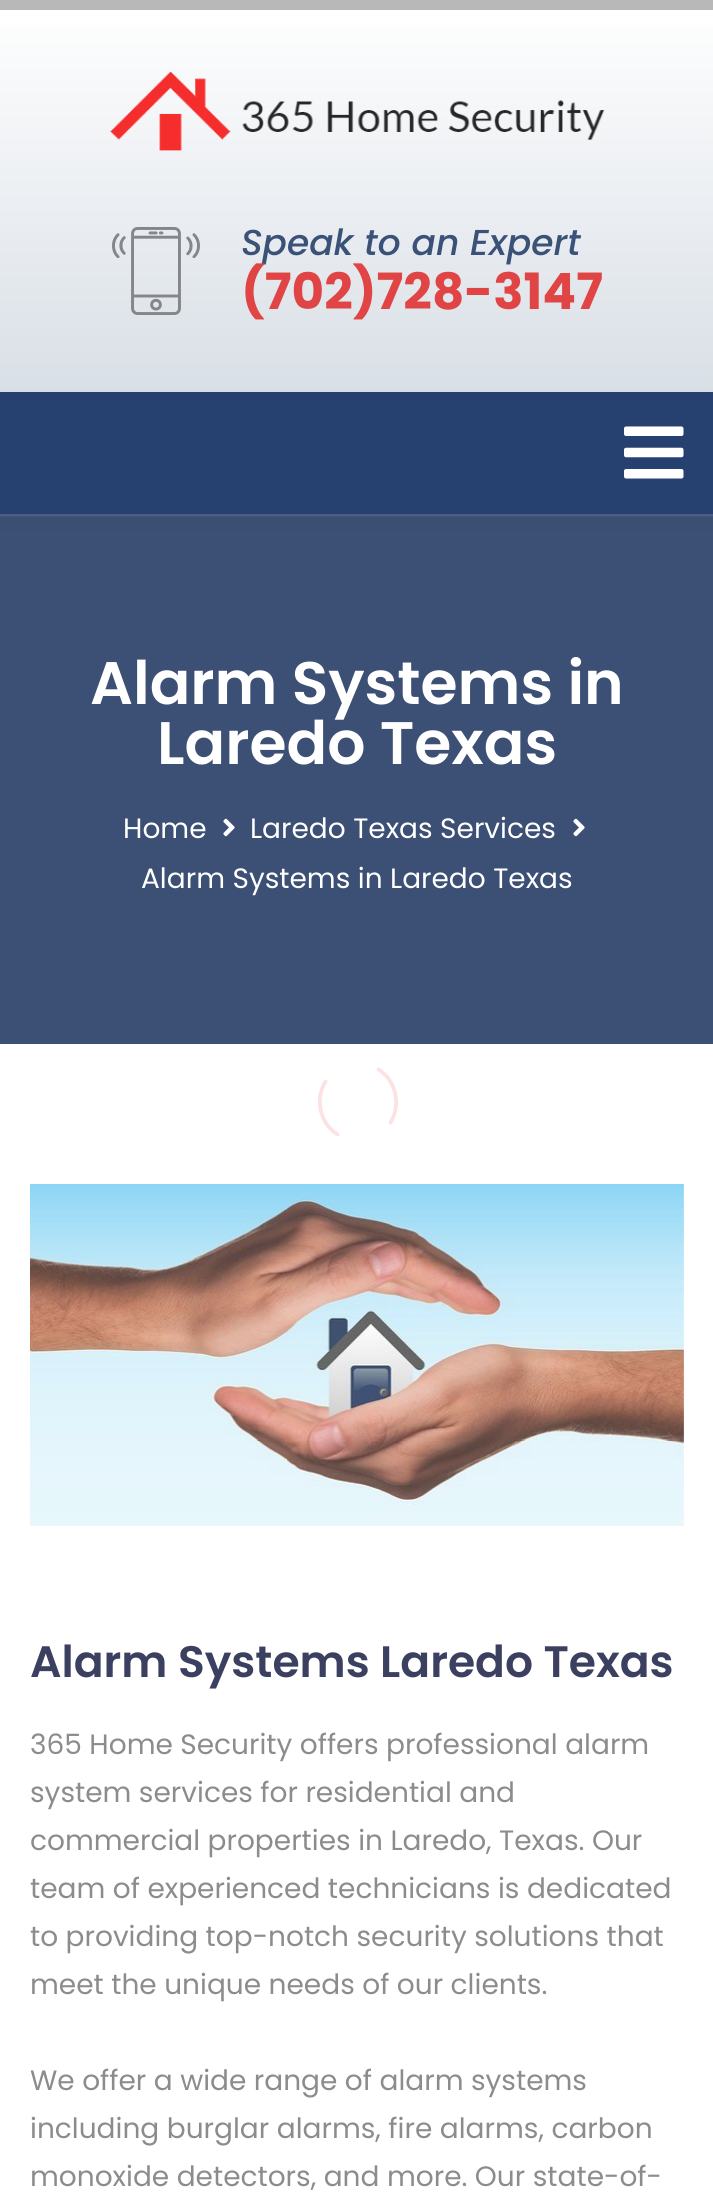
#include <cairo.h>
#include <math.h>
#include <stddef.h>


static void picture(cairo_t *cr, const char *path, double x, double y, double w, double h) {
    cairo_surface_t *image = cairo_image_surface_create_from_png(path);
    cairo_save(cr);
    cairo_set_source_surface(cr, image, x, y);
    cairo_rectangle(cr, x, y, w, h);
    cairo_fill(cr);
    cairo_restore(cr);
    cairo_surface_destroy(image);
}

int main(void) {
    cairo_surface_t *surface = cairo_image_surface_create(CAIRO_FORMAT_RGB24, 713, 2201);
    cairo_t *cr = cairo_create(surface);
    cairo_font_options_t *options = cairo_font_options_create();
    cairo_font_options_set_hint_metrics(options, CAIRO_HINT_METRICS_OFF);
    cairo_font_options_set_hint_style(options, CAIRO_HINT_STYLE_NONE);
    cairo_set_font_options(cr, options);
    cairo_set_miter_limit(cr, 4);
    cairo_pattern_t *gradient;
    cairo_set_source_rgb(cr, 1, 1, 1);
    cairo_paint(cr);
    gradient = cairo_pattern_create_linear(357, 0, 357, 392);
    cairo_pattern_add_color_stop_rgba(gradient, 0, 1, 1, 1, 1);
    cairo_pattern_add_color_stop_rgba(gradient, 1, 0.851, 0.875, 0.902, 1);
    cairo_set_source(cr, gradient);
    cairo_pattern_destroy(gradient);
    cairo_rectangle(cr, 0, 26, 713, 366);
    cairo_fill(cr);
    cairo_set_source_rgb(cr, 0.722, 0.722, 0.722);
    cairo_rectangle(cr, 0, 0, 713, 10);
    cairo_fill(cr);
    picture(cr, "img1.png", 110, 71, 495, 80);
    picture(cr, "img2.png", 112, 227, 88, 88);
    cairo_select_font_face(cr, "Poppins Medium", CAIRO_FONT_SLANT_ITALIC, CAIRO_FONT_WEIGHT_NORMAL);
    cairo_set_font_size(cr, 36);
    cairo_set_source_rgb(cr, 0.227, 0.318, 0.471);
    cairo_move_to(cr, 241, 255);
    cairo_show_text(cr, "Speak to an Expert");
    cairo_select_font_face(cr, "Poppins", CAIRO_FONT_SLANT_NORMAL, CAIRO_FONT_WEIGHT_BOLD);
    cairo_set_font_size(cr, 50);
    cairo_set_source_rgb(cr, 0.882, 0.267, 0.267);
    cairo_move_to(cr, 241, 309);
    cairo_show_text(cr, "(702)728-3147");
    cairo_set_source_rgb(cr, 0.149, 0.251, 0.439);
    cairo_rectangle(cr, 0, 392, 713, 122);
    cairo_fill(cr);
    picture(cr, "img3.png", 624, 426, 60, 53);
    picture(cr, "img4.png", 0, 514, 713, 530);
    cairo_select_font_face(cr, "Poppins SemiBold", CAIRO_FONT_SLANT_NORMAL, CAIRO_FONT_WEIGHT_NORMAL);
    cairo_set_font_size(cr, 60);
    cairo_set_source_rgb(cr, 1, 1, 1);
    cairo_move_to(cr, 90, 704);
    cairo_show_text(cr, "Alarm Systems in");
    cairo_move_to(cr, 157, 764);
    cairo_show_text(cr, "Laredo Texas");
    cairo_select_font_face(cr, "Poppins", CAIRO_FONT_SLANT_NORMAL, CAIRO_FONT_WEIGHT_NORMAL);
    cairo_set_font_size(cr, 28);
    cairo_move_to(cr, 123, 838);
    cairo_show_text(cr, "Home");
    picture(cr, "img5.png", 223, 818, 12, 19);
    cairo_move_to(cr, 250, 838);
    cairo_show_text(cr, "Laredo Texas Services");
    picture(cr, "img5.png", 573, 818, 12, 19);
    cairo_move_to(cr, 141, 888);
    cairo_show_text(cr, "Alarm Systems in Laredo Texas");
    picture(cr, "img6.png", 30, 1184, 654, 342);
    cairo_select_font_face(cr, "Poppins SemiBold", CAIRO_FONT_SLANT_NORMAL, CAIRO_FONT_WEIGHT_NORMAL);
    cairo_set_font_size(cr, 44);
    cairo_set_source_rgb(cr, 0.231, 0.251, 0.376);
    cairo_move_to(cr, 30, 1677);
    cairo_show_text(cr, "Alarm Systems Laredo Texas");
    cairo_select_font_face(cr, "Poppins", CAIRO_FONT_SLANT_NORMAL, CAIRO_FONT_WEIGHT_NORMAL);
    cairo_set_font_size(cr, 28);
    cairo_set_source_rgb(cr, 0.549, 0.549, 0.549);
    cairo_move_to(cr, 30, 1754);
    cairo_show_text(cr, "365 Home Security offers professional alarm");
    cairo_move_to(cr, 30, 1802);
    cairo_show_text(cr, "system services for residential and");
    cairo_move_to(cr, 30, 1850);
    cairo_show_text(cr, "commercial properties in Laredo, Texas. Our");
    cairo_move_to(cr, 30, 1898);
    cairo_show_text(cr, "team of experienced technicians is dedicated");
    cairo_move_to(cr, 30, 1946);
    cairo_show_text(cr, "to providing top-notch security solutions that");
    cairo_move_to(cr, 30, 1994);
    cairo_show_text(cr, "meet the unique needs of our clients.");
    cairo_move_to(cr, 30, 2090);
    cairo_show_text(cr, "We offer a wide range of alarm systems");
    cairo_move_to(cr, 30, 2138);
    cairo_show_text(cr, "including burglar alarms, fire alarms, carbon");
    cairo_move_to(cr, 30, 2186);
    cairo_show_text(cr, "monoxide detectors, and more. Our state-of-");
    cairo_new_path(cr);
    cairo_move_to(cr, 378.5, 1069.5);
    cairo_curve_to(cr, 396, 1080.5, 401.5, 1104.5, 390.5, 1122.5);
    cairo_move_to(cr, 337.5, 1134.5);
    cairo_curve_to(cr, 320, 1123.5, 314.5, 1099.5, 325.5, 1081.5);
    cairo_set_source_rgb(cr, 0.988, 0.886, 0.886);
    cairo_set_line_width(cr, 3.8);
    cairo_set_line_cap(cr, CAIRO_LINE_CAP_ROUND);
    cairo_stroke(cr);
    cairo_surface_write_to_png(surface, "page.png");
    cairo_font_options_destroy(options);
    cairo_destroy(cr);
    cairo_surface_destroy(surface);
    return 0;
}
